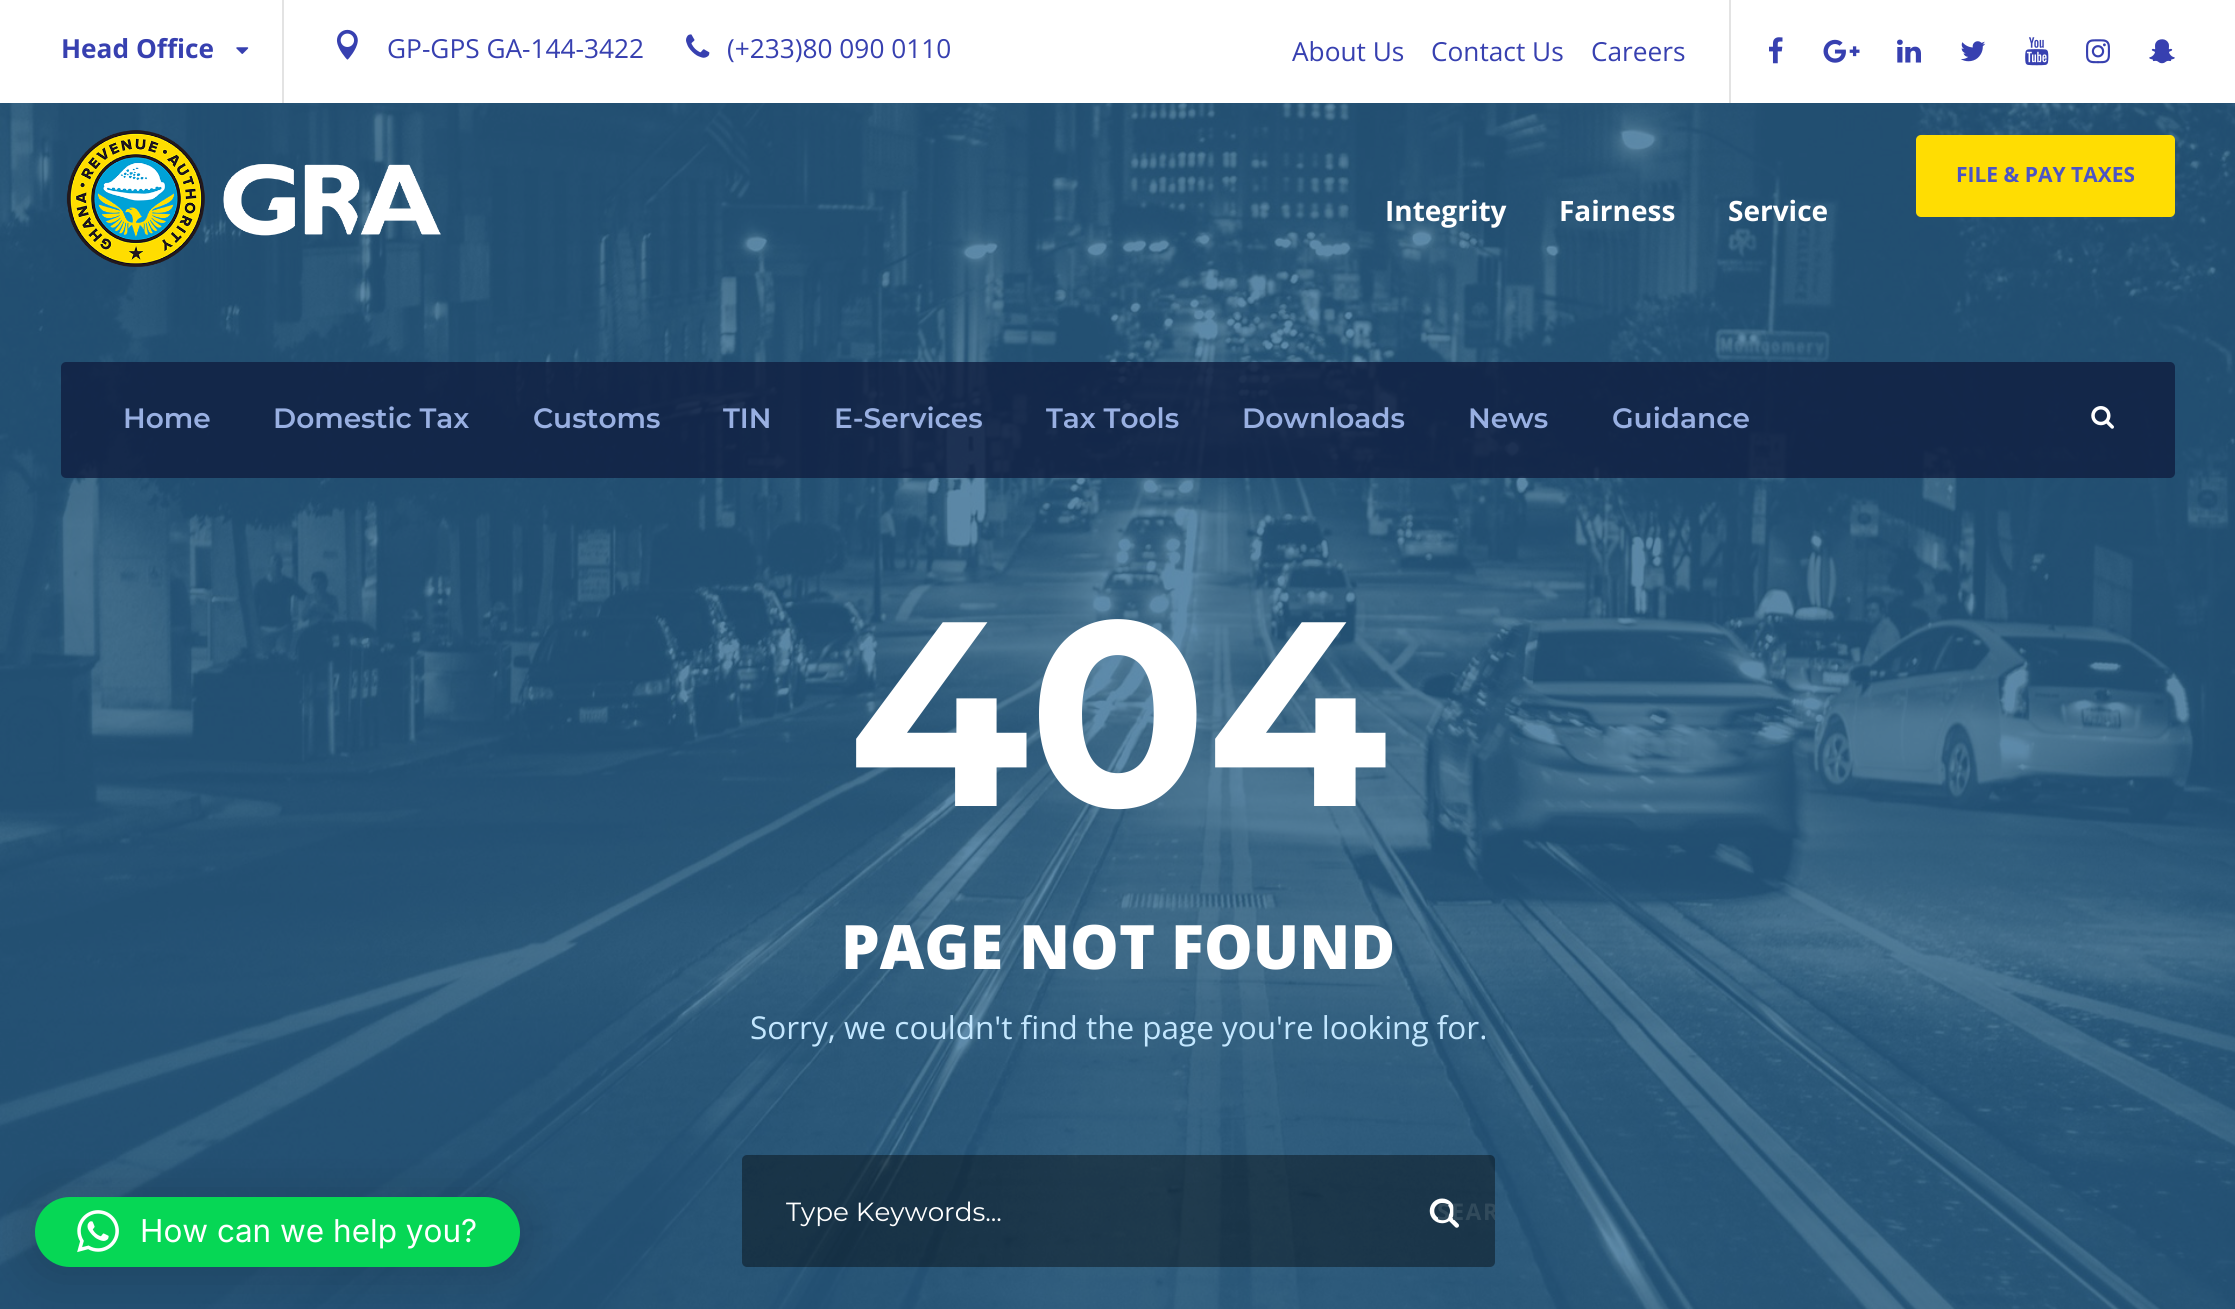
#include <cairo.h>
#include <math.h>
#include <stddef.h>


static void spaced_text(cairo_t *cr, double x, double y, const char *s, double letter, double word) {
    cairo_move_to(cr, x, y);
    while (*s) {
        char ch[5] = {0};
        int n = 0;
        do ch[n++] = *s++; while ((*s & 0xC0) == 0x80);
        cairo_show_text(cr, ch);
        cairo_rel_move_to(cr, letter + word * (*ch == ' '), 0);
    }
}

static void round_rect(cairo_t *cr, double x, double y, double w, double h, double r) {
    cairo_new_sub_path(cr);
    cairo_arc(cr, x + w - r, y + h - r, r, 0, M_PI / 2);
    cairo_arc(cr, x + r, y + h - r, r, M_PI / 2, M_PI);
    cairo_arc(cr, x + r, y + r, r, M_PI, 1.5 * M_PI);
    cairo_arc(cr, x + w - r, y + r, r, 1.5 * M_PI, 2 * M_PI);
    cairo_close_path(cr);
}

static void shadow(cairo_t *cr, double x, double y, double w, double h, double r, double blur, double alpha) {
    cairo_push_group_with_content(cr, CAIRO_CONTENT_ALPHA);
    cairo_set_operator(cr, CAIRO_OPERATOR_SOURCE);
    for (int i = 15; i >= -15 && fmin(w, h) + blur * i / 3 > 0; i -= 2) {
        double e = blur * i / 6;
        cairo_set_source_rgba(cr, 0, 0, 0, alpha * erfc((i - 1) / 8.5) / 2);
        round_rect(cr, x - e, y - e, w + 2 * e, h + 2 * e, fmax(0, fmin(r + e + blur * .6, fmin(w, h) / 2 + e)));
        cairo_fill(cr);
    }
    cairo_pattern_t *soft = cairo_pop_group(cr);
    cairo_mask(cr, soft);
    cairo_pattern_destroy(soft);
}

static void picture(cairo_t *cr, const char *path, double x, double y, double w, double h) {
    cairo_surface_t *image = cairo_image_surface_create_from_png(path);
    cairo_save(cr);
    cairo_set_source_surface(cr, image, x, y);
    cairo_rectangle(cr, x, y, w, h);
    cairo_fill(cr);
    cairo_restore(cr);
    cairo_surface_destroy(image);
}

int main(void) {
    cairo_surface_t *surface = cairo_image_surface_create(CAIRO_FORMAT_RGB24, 2235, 1309);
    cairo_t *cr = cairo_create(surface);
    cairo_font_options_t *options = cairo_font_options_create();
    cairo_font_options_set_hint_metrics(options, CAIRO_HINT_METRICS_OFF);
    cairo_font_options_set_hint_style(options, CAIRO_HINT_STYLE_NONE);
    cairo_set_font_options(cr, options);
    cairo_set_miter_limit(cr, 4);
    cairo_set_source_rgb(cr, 0.137, 0.38, 0.557);
    cairo_paint(cr);
    cairo_set_source_rgb(cr, 1, 1, 1);
    cairo_rectangle(cr, 0, 0, 2235, 103);
    cairo_fill(cr);
    cairo_select_font_face(cr, "Open Sans", CAIRO_FONT_SLANT_NORMAL, CAIRO_FONT_WEIGHT_BOLD);
    cairo_set_font_size(cr, 26.25);
    cairo_set_source_rgb(cr, 0.216, 0.251, 0.69);
    cairo_move_to(cr, 61, 58);
    cairo_show_text(cr, "Head Office");
    picture(cr, "img1.png", 236, 47, 13, 7);
    cairo_set_source_rgb(cr, 0.89, 0.89, 0.89);
    cairo_rectangle(cr, 282, 0, 2, 103);
    cairo_fill(cr);
    picture(cr, "img2.png", 336, 29, 22, 31);
    cairo_select_font_face(cr, "Open Sans", CAIRO_FONT_SLANT_NORMAL, CAIRO_FONT_WEIGHT_NORMAL);
    cairo_set_source_rgb(cr, 0.216, 0.251, 0.69);
    cairo_move_to(cr, 387, 58);
    cairo_show_text(cr, "GP-GPS GA-144-3422");
    picture(cr, "img3.png", 686, 34, 24, 24);
    cairo_move_to(cr, 727, 58);
    cairo_show_text(cr, "(+233)80 090 0110");
    cairo_move_to(cr, 1292, 61);
    cairo_show_text(cr, "About Us");
    cairo_move_to(cr, 1431, 61);
    cairo_show_text(cr, "Contact Us");
    cairo_move_to(cr, 1591, 61);
    cairo_show_text(cr, "Careers");
    cairo_set_source_rgb(cr, 0.89, 0.89, 0.89);
    cairo_rectangle(cr, 1729, 0, 2, 103);
    cairo_fill(cr);
    picture(cr, "img4.png", 1769, 37, 14, 27);
    picture(cr, "img5.png", 1823, 39, 37, 24);
    picture(cr, "img6.png", 1897, 39, 24, 24);
    picture(cr, "img7.png", 1960, 41, 26, 21);
    picture(cr, "img8.png", 2025, 37, 24, 29);
    picture(cr, "img9.png", 2086, 39, 24, 25);
    picture(cr, "img10.png", 2149, 39, 26, 25);
    picture(cr, "img13.png", 0, 103, 2235, 1206);
    picture(cr, "img11.png", 66, 130, 375, 137);
    cairo_set_source_rgb(cr, 1, 0.867, 0.008);
    round_rect(cr, 1916, 135, 259, 82, 5);
    cairo_fill(cr);
    cairo_select_font_face(cr, "Open Sans", CAIRO_FONT_SLANT_NORMAL, CAIRO_FONT_WEIGHT_BOLD);
    cairo_set_font_size(cr, 21);
    cairo_set_source_rgb(cr, 0.298, 0.329, 0.769);
    cairo_move_to(cr, 1956, 182);
    cairo_show_text(cr, "FILE & PAY TAXES");
    cairo_set_font_size(cr, 28);
    cairo_set_source_rgb(cr, 1, 1, 1);
    cairo_move_to(cr, 1385, 221);
    cairo_show_text(cr, "Integrity");
    cairo_move_to(cr, 1559, 221);
    cairo_show_text(cr, "Fairness");
    cairo_move_to(cr, 1728, 221);
    cairo_show_text(cr, "Service");
    cairo_set_source_rgba(cr, 0.063, 0.122, 0.255, 0.82);
    round_rect(cr, 61, 362, 2114, 116, 5);
    cairo_fill(cr);
    cairo_select_font_face(cr, "Montserrat SemiBold", CAIRO_FONT_SLANT_NORMAL, CAIRO_FONT_WEIGHT_NORMAL);
    cairo_set_source_rgb(cr, 0.6, 0.69, 0.886);
    cairo_move_to(cr, 123, 428);
    cairo_show_text(cr, "Home");
    cairo_move_to(cr, 273, 428);
    cairo_show_text(cr, "Domestic Tax");
    cairo_move_to(cr, 533, 428);
    cairo_show_text(cr, "Customs");
    cairo_move_to(cr, 723, 428);
    cairo_show_text(cr, "TIN");
    cairo_move_to(cr, 834, 428);
    cairo_show_text(cr, "E-Services");
    cairo_move_to(cr, 1046, 428);
    cairo_show_text(cr, "Tax Tools");
    cairo_move_to(cr, 1242, 428);
    cairo_show_text(cr, "Downloads");
    cairo_move_to(cr, 1468, 428);
    cairo_show_text(cr, "News");
    cairo_move_to(cr, 1612, 428);
    cairo_show_text(cr, "Guidance");
    picture(cr, "img12.png", 2091, 406, 23, 23);
    cairo_select_font_face(cr, "Montserrat", CAIRO_FONT_SLANT_NORMAL, CAIRO_FONT_WEIGHT_BOLD);
    cairo_set_font_size(cr, 262.5);
    cairo_set_source_rgb(cr, 1, 1, 1);
    cairo_move_to(cr, 848, 806);
    cairo_show_text(cr, "404");
    cairo_select_font_face(cr, "Open Sans ExtraBold", CAIRO_FONT_SLANT_NORMAL, CAIRO_FONT_WEIGHT_NORMAL);
    cairo_set_font_size(cr, 61.25);
    cairo_move_to(cr, 841, 969);
    cairo_show_text(cr, "PAGE NOT FOUND");
    cairo_select_font_face(cr, "Open Sans", CAIRO_FONT_SLANT_NORMAL, CAIRO_FONT_WEIGHT_NORMAL);
    cairo_set_font_size(cr, 31.5);
    cairo_set_source_rgb(cr, 0.765, 0.906, 1);
    cairo_move_to(cr, 750, 1039);
    cairo_show_text(cr, "Sorry, we couldn't find the page you're looking for.");
    cairo_set_source_rgba(cr, 0, 0, 0, 0.4);
    round_rect(cr, 742, 1155, 753, 112, 5);
    cairo_fill(cr);
    cairo_select_font_face(cr, "Montserrat", CAIRO_FONT_SLANT_NORMAL, CAIRO_FONT_WEIGHT_NORMAL);
    cairo_set_font_size(cr, 26.25);
    cairo_set_source_rgb(cr, 1, 1, 1);
    cairo_move_to(cr, 786, 1221);
    cairo_show_text(cr, "Type Keywords...");
    picture(cr, "img14.png", 1429, 1198, 30, 30);
    cairo_save(cr);
    cairo_rectangle(cr, 1379, 1155, 116, 112);
    cairo_clip(cr);
    cairo_select_font_face(cr, "Open Sans", CAIRO_FONT_SLANT_NORMAL, CAIRO_FONT_WEIGHT_BOLD);
    cairo_set_font_size(cr, 23);
    cairo_set_source_rgb(cr, 0.192, 0.29, 0.357);
    spaced_text(cr, 1437, 1220, "SEAR", 1.5, 0);
    cairo_restore(cr);
    cairo_set_source_rgb(cr, 0, 0, 0);
    shadow(cr, 35, 1201, 485, 70, 35, 28, 0.16);
    cairo_set_source_rgb(cr, 0.024, 0.843, 0.333);
    round_rect(cr, 35, 1197, 485, 70, 35);
    cairo_fill(cr);
    picture(cr, "img15.png", 77, 1210, 42, 43);
    cairo_select_font_face(cr, "Inter", CAIRO_FONT_SLANT_NORMAL, CAIRO_FONT_WEIGHT_NORMAL);
    cairo_set_font_size(cr, 31.5);
    cairo_set_source_rgb(cr, 1, 1, 1);
    cairo_move_to(cr, 140, 1242);
    cairo_show_text(cr, "How can we help you?");
    cairo_surface_write_to_png(surface, "page.png");
    cairo_font_options_destroy(options);
    cairo_destroy(cr);
    cairo_surface_destroy(surface);
    return 0;
}
